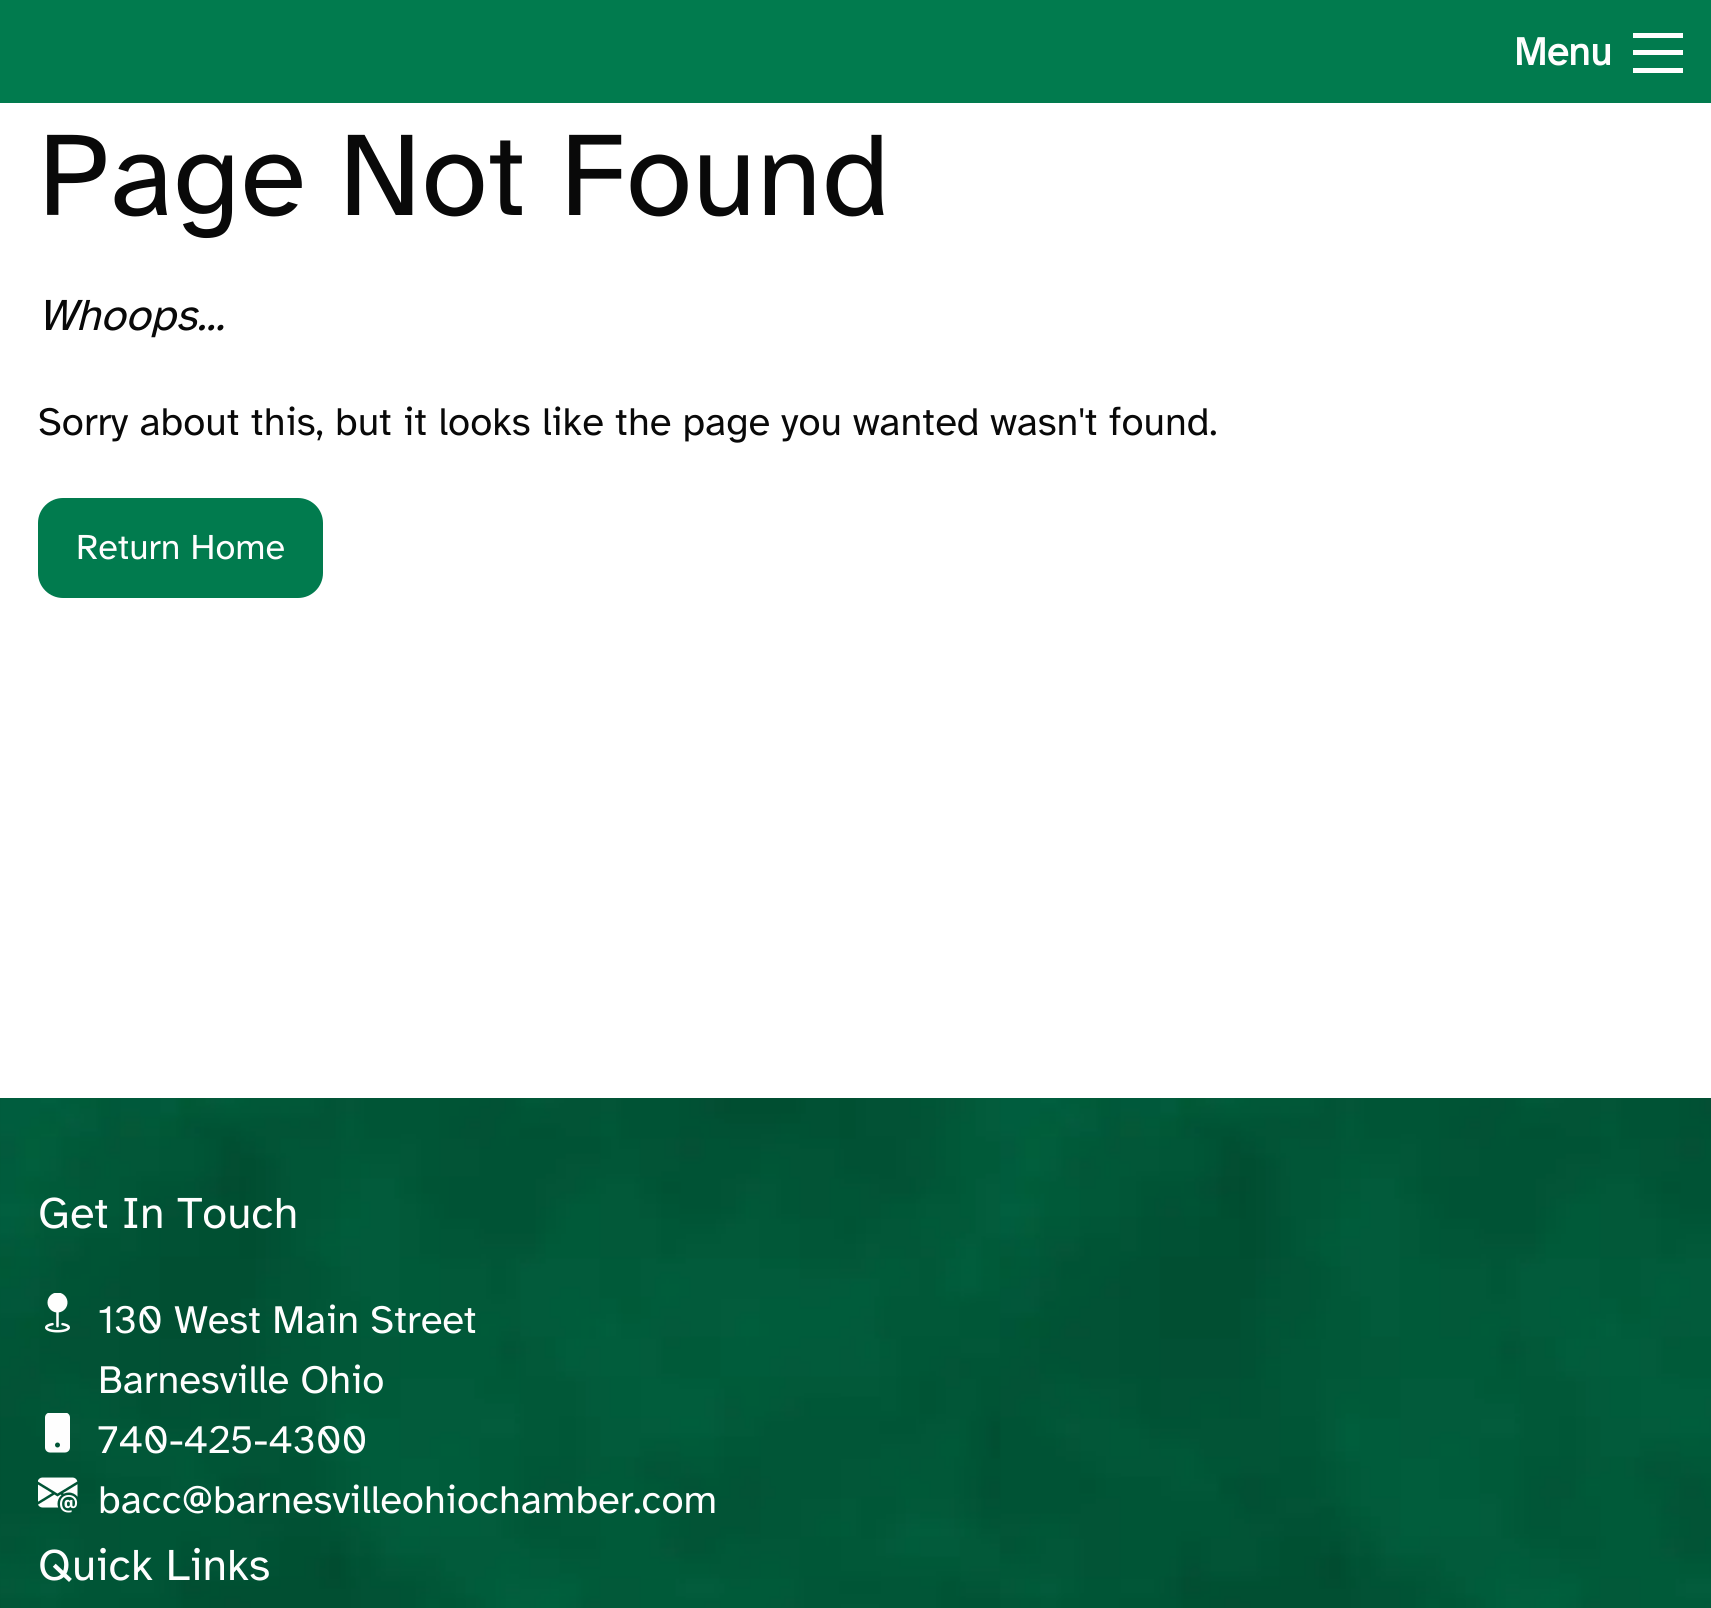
#include <cairo.h>
#include <math.h>
#include <stddef.h>


static void round_rect(cairo_t *cr, double x, double y, double w, double h, double r) {
    cairo_new_sub_path(cr);
    cairo_arc(cr, x + w - r, y + h - r, r, 0, M_PI / 2);
    cairo_arc(cr, x + r, y + h - r, r, M_PI / 2, M_PI);
    cairo_arc(cr, x + r, y + r, r, M_PI, 1.5 * M_PI);
    cairo_arc(cr, x + w - r, y + r, r, 1.5 * M_PI, 2 * M_PI);
    cairo_close_path(cr);
}

static void picture(cairo_t *cr, const char *path, double x, double y, double w, double h) {
    cairo_surface_t *image = cairo_image_surface_create_from_png(path);
    cairo_save(cr);
    cairo_set_source_surface(cr, image, x, y);
    cairo_rectangle(cr, x, y, w, h);
    cairo_fill(cr);
    cairo_restore(cr);
    cairo_surface_destroy(image);
}

int main(void) {
    cairo_surface_t *surface = cairo_image_surface_create(CAIRO_FORMAT_RGB24, 1711, 1608);
    cairo_t *cr = cairo_create(surface);
    cairo_font_options_t *options = cairo_font_options_create();
    cairo_font_options_set_hint_metrics(options, CAIRO_HINT_METRICS_OFF);
    cairo_font_options_set_hint_style(options, CAIRO_HINT_STYLE_NONE);
    cairo_set_font_options(cr, options);
    cairo_set_miter_limit(cr, 4);
    cairo_set_source_rgb(cr, 1, 1, 1);
    cairo_paint(cr);
    cairo_set_source_rgb(cr, 0.004, 0.482, 0.306);
    cairo_rectangle(cr, 0, 0, 1711, 103);
    cairo_fill(cr);
    cairo_select_font_face(cr, "Atkinson Hyperlegible", CAIRO_FONT_SLANT_NORMAL, CAIRO_FONT_WEIGHT_BOLD);
    cairo_set_font_size(cr, 40);
    cairo_set_source_rgb(cr, 0.996, 0.996, 0.996);
    cairo_move_to(cr, 1514, 65);
    cairo_show_text(cr, "Menu");
    cairo_rectangle(cr, 1633, 68, 50, 5);
    cairo_fill(cr);
    cairo_rectangle(cr, 1633, 50, 50, 5);
    cairo_fill(cr);
    cairo_rectangle(cr, 1633, 33, 50, 5);
    cairo_fill(cr);
    cairo_select_font_face(cr, "Atkinson Hyperlegible", CAIRO_FONT_SLANT_NORMAL, CAIRO_FONT_WEIGHT_NORMAL);
    cairo_set_font_size(cr, 120);
    cairo_set_source_rgb(cr, 0.039, 0.039, 0.039);
    cairo_move_to(cr, 38, 215);
    cairo_show_text(cr, "Page Not Found");
    cairo_select_font_face(cr, "Atkinson Hyperlegible", CAIRO_FONT_SLANT_ITALIC, CAIRO_FONT_WEIGHT_NORMAL);
    cairo_set_font_size(cr, 45);
    cairo_move_to(cr, 38, 330);
    cairo_show_text(cr, "Whoops...");
    cairo_select_font_face(cr, "Atkinson Hyperlegible", CAIRO_FONT_SLANT_NORMAL, CAIRO_FONT_WEIGHT_NORMAL);
    cairo_set_font_size(cr, 40);
    cairo_move_to(cr, 38, 435);
    cairo_show_text(cr, "Sorry about this, but it looks like the page you wanted wasn't found.");
    cairo_set_source_rgb(cr, 0.004, 0.482, 0.306);
    round_rect(cr, 38, 498, 285, 100, 25);
    cairo_fill(cr);
    cairo_set_font_size(cr, 36);
    cairo_set_source_rgb(cr, 0.996, 0.996, 0.996);
    cairo_move_to(cr, 76, 559);
    cairo_show_text(cr, "Return Home");
    picture(cr, "img1.png", 0, 1098, 1711, 510);
    cairo_set_font_size(cr, 45);
    cairo_move_to(cr, 38, 1228);
    cairo_show_text(cr, "Get In Touch");
    picture(cr, "img2.png", 45, 1293, 25, 40);
    cairo_set_font_size(cr, 40);
    cairo_move_to(cr, 98, 1333);
    cairo_show_text(cr, "130 West Main Street");
    cairo_move_to(cr, 98, 1393);
    cairo_show_text(cr, "Barnesville Ohio");
    picture(cr, "img3.png", 45, 1413, 25, 40);
    cairo_move_to(cr, 98, 1453);
    cairo_show_text(cr, "740-425-4300");
    picture(cr, "img4.png", 38, 1477, 40, 36);
    cairo_move_to(cr, 98, 1513);
    cairo_show_text(cr, "bacc@barnesvilleohiochamber.com");
    cairo_set_font_size(cr, 45);
    cairo_move_to(cr, 38, 1580);
    cairo_show_text(cr, "Quick Links");
    cairo_surface_write_to_png(surface, "page.png");
    cairo_font_options_destroy(options);
    cairo_destroy(cr);
    cairo_surface_destroy(surface);
    return 0;
}
